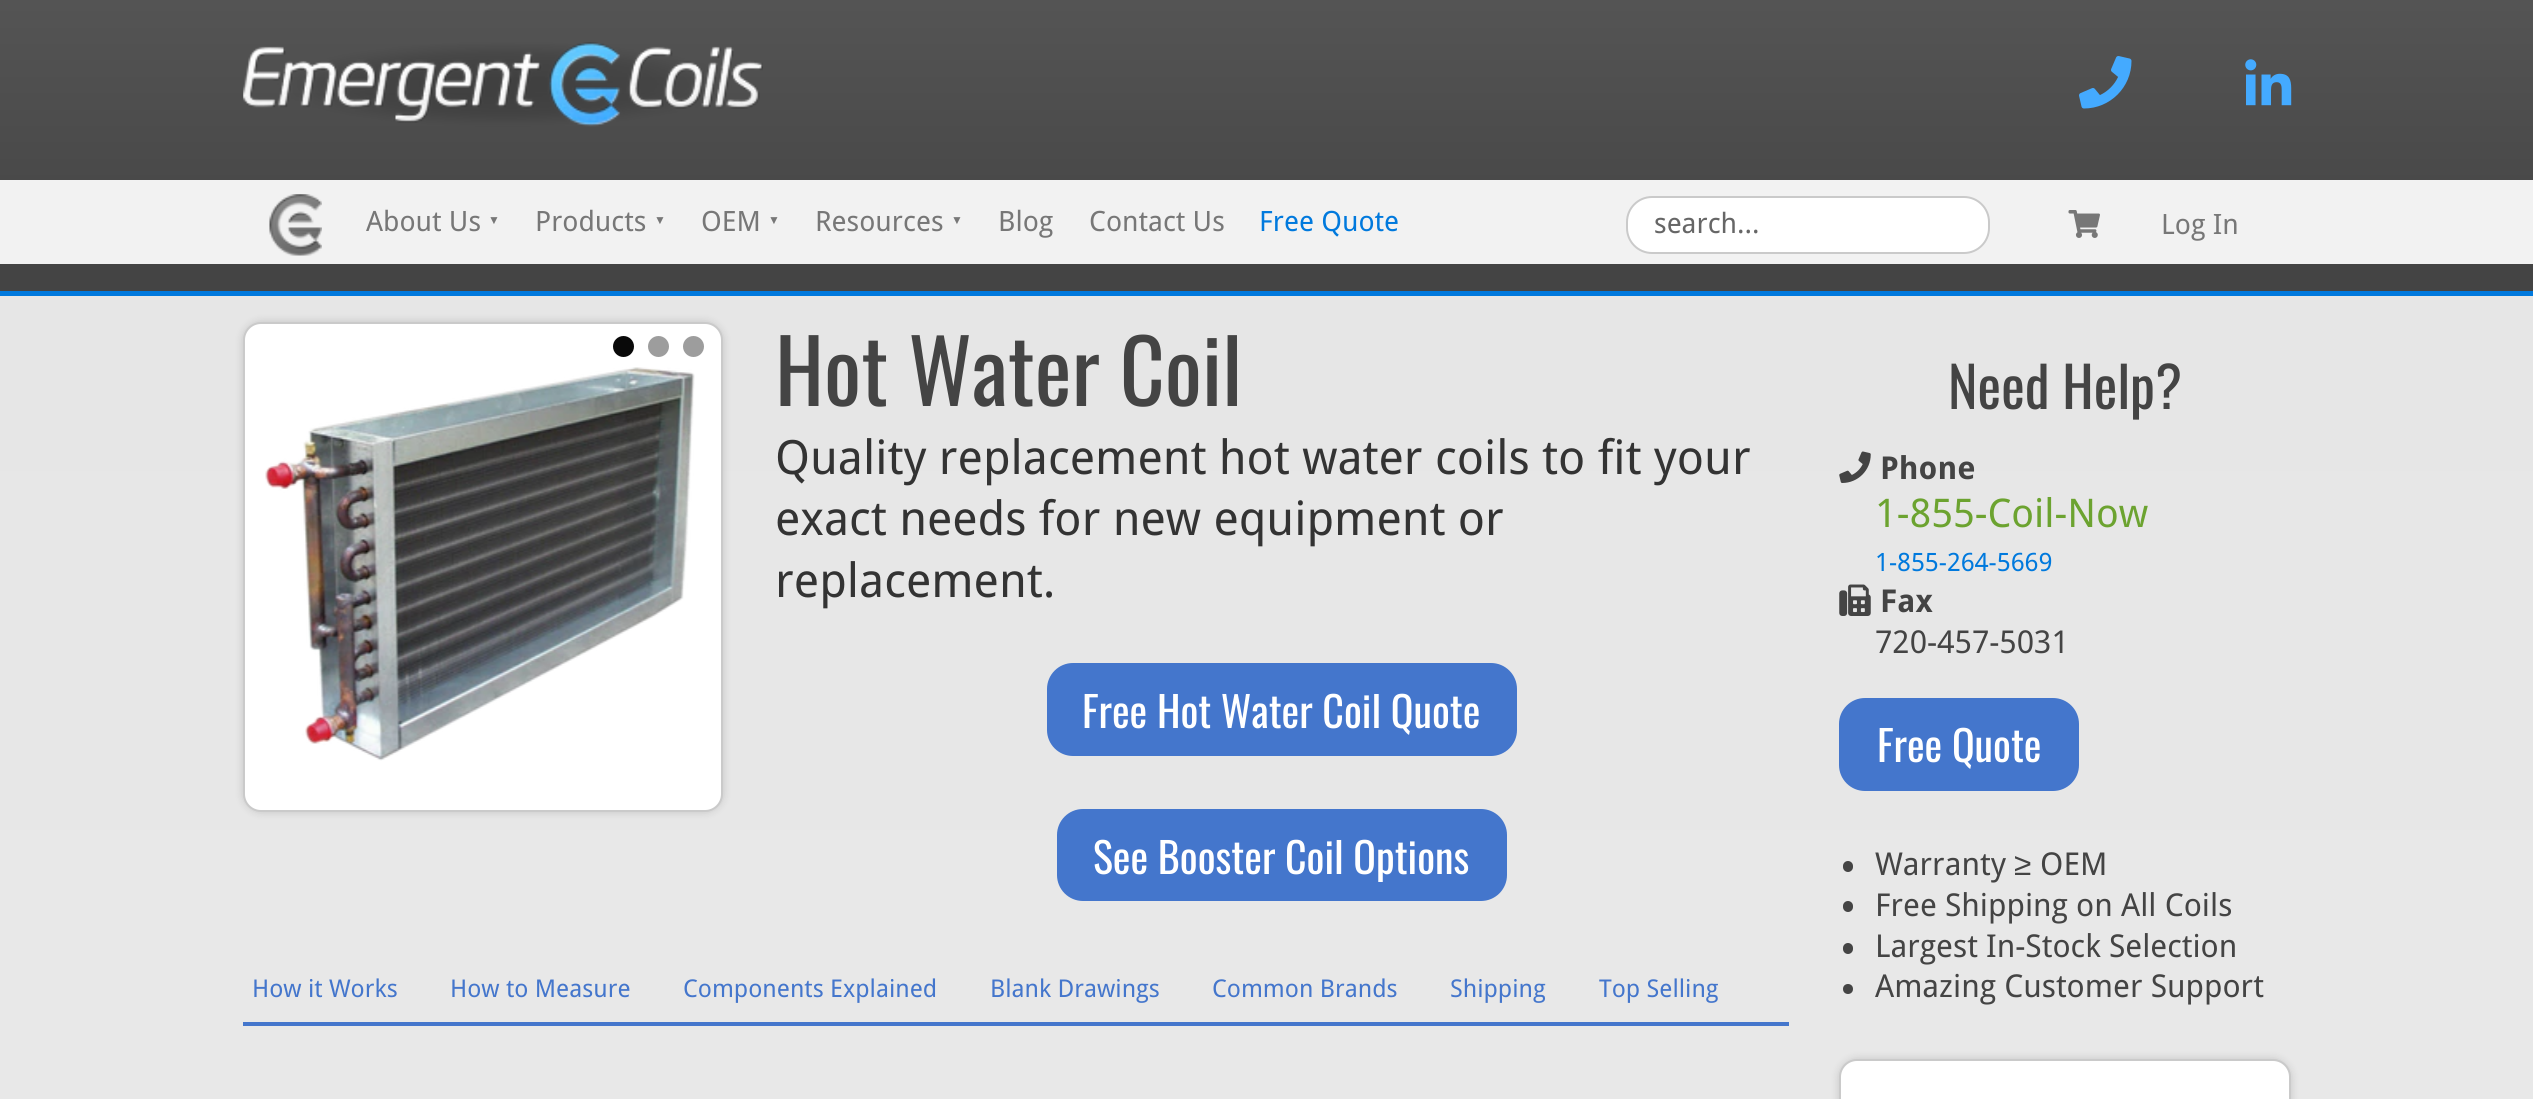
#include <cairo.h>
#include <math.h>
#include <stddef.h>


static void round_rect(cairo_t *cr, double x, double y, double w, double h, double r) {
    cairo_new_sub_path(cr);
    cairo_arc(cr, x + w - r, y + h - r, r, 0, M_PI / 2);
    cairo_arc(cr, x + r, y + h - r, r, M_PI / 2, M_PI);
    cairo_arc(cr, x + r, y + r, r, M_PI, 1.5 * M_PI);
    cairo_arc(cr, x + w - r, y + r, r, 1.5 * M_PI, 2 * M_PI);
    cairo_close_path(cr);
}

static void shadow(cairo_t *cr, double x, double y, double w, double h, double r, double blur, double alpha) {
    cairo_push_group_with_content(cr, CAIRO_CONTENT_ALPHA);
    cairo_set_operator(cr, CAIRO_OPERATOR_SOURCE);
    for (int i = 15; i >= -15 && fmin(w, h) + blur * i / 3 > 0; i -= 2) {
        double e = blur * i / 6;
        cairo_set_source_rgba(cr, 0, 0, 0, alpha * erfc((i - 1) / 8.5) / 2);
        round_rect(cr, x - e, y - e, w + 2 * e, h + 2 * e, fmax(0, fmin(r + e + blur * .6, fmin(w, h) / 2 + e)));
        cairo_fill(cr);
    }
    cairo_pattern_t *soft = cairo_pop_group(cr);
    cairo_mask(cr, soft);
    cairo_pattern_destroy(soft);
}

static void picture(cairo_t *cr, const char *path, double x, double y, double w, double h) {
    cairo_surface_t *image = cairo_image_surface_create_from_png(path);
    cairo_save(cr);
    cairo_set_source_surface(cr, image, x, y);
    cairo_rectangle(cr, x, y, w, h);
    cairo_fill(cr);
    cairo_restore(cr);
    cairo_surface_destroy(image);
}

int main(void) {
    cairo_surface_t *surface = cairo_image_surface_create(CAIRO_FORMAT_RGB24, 2533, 1099);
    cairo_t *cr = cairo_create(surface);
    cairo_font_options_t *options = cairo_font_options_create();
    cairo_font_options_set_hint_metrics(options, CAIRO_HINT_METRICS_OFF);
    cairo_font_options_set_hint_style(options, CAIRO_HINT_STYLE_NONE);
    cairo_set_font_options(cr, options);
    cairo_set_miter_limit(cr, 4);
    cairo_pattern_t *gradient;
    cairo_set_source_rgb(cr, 0.267, 0.267, 0.267);
    cairo_paint(cr);
    gradient = cairo_pattern_create_linear(1267, -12, 1267, 264);
    cairo_pattern_add_color_stop_rgba(gradient, 0, 0.333, 0.333, 0.333, 1);
    cairo_pattern_add_color_stop_rgba(gradient, 1, 0.267, 0.267, 0.267, 1);
    cairo_set_source(cr, gradient);
    cairo_pattern_destroy(gradient);
    cairo_rectangle(cr, 0, 0, 2533, 180);
    cairo_fill(cr);
    picture(cr, "img1.png", 243, 42, 520, 85);
    picture(cr, "img2.png", 2079, 56, 53, 53);
    picture(cr, "img3.png", 2245, 59, 47, 47);
    cairo_set_source_rgb(cr, 0.949, 0.949, 0.949);
    cairo_rectangle(cr, 0, 180, 2533, 84);
    cairo_fill(cr);
    picture(cr, "img4.png", 269, 194, 53, 62);
    cairo_select_font_face(cr, "Droid Sans", CAIRO_FONT_SLANT_NORMAL, CAIRO_FONT_WEIGHT_NORMAL);
    cairo_set_font_size(cr, 28);
    cairo_set_source_rgb(cr, 0.467, 0.467, 0.467);
    cairo_move_to(cr, 366, 231);
    cairo_show_text(cr, "About Us");
    cairo_select_font_face(cr, "Liberation Sans", CAIRO_FONT_SLANT_NORMAL, CAIRO_FONT_WEIGHT_NORMAL);
    cairo_set_font_size(cr, 12);
    cairo_move_to(cr, 488, 224);
    cairo_show_text(cr, "▼");
    cairo_select_font_face(cr, "Droid Sans", CAIRO_FONT_SLANT_NORMAL, CAIRO_FONT_WEIGHT_NORMAL);
    cairo_set_font_size(cr, 28);
    cairo_move_to(cr, 535, 231);
    cairo_show_text(cr, "Products");
    cairo_select_font_face(cr, "Liberation Sans", CAIRO_FONT_SLANT_NORMAL, CAIRO_FONT_WEIGHT_NORMAL);
    cairo_set_font_size(cr, 12);
    cairo_move_to(cr, 654, 224);
    cairo_show_text(cr, "▼");
    cairo_select_font_face(cr, "Droid Sans", CAIRO_FONT_SLANT_NORMAL, CAIRO_FONT_WEIGHT_NORMAL);
    cairo_set_font_size(cr, 28);
    cairo_move_to(cr, 701, 231);
    cairo_show_text(cr, "OEM");
    cairo_select_font_face(cr, "Liberation Sans", CAIRO_FONT_SLANT_NORMAL, CAIRO_FONT_WEIGHT_NORMAL);
    cairo_set_font_size(cr, 12);
    cairo_move_to(cr, 768, 224);
    cairo_show_text(cr, "▼");
    cairo_select_font_face(cr, "Droid Sans", CAIRO_FONT_SLANT_NORMAL, CAIRO_FONT_WEIGHT_NORMAL);
    cairo_set_font_size(cr, 28);
    cairo_move_to(cr, 815, 231);
    cairo_show_text(cr, "Resources");
    cairo_select_font_face(cr, "Liberation Sans", CAIRO_FONT_SLANT_NORMAL, CAIRO_FONT_WEIGHT_NORMAL);
    cairo_set_font_size(cr, 12);
    cairo_move_to(cr, 951, 224);
    cairo_show_text(cr, "▼");
    cairo_select_font_face(cr, "Droid Sans", CAIRO_FONT_SLANT_NORMAL, CAIRO_FONT_WEIGHT_NORMAL);
    cairo_set_font_size(cr, 28);
    cairo_move_to(cr, 998, 231);
    cairo_show_text(cr, "Blog");
    cairo_move_to(cr, 1089, 231);
    cairo_show_text(cr, "Contact Us");
    cairo_set_source_rgb(cr, 0, 0.475, 0.867);
    cairo_move_to(cr, 1259, 231);
    cairo_show_text(cr, "Free Quote");
    cairo_set_source_rgb(cr, 1, 1, 1);
    round_rect(cr, 1627, 197, 362, 56, 25);
    cairo_fill_preserve(cr);
    cairo_set_source_rgb(cr, 0.792, 0.792, 0.792);
    cairo_stroke(cr);
    cairo_set_source_rgb(cr, 0.4, 0.4, 0.4);
    cairo_move_to(cr, 1654, 233);
    cairo_show_text(cr, "search...");
    picture(cr, "img5.png", 2068, 210, 32, 28);
    cairo_set_source_rgb(cr, 0.467, 0.467, 0.467);
    cairo_move_to(cr, 2161, 234);
    cairo_show_text(cr, "Log In");
    gradient = cairo_pattern_create_linear(1267, 296, 1267, 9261);
    cairo_pattern_add_color_stop_rgba(gradient, 0, 0.902, 0.902, 0.902, 1);
    cairo_pattern_add_color_stop_rgba(gradient, 1, 1, 1, 1, 1);
    cairo_set_source(cr, gradient);
    cairo_pattern_destroy(gradient);
    cairo_rectangle(cr, 0, 296, 2533, 803);
    cairo_fill(cr);
    cairo_set_source_rgb(cr, 0, 0.475, 0.867);
    cairo_rectangle(cr, 0, 291, 2533, 5);
    cairo_fill(cr);
    cairo_set_source_rgb(cr, 0, 0, 0);
    shadow(cr, 243, 322, 480, 490, 18, 4.5, 0.15);
    cairo_set_source_rgb(cr, 1, 1, 1);
    round_rect(cr, 244, 323, 478, 488, 17);
    cairo_fill_preserve(cr);
    cairo_set_source_rgb(cr, 0.792, 0.792, 0.792);
    cairo_stroke(cr);
    cairo_set_source_rgb(cr, 0.039, 0.039, 0.039);
    cairo_arc(cr, 623.5, 346.5, 10.5, 0, 2 * M_PI);
    cairo_fill(cr);
    cairo_set_source_rgb(cr, 0.616, 0.616, 0.616);
    cairo_arc(cr, 658.5, 346.5, 10.5, 0, 2 * M_PI);
    cairo_fill(cr);
    cairo_arc(cr, 693.5, 346.5, 10.5, 0, 2 * M_PI);
    cairo_fill(cr);
    picture(cr, "img6.png", 265, 367, 430, 394);
    cairo_select_font_face(cr, "Oswald", CAIRO_FONT_SLANT_NORMAL, CAIRO_FONT_WEIGHT_NORMAL);
    cairo_set_font_size(cr, 87.5);
    cairo_set_source_rgb(cr, 0.267, 0.267, 0.267);
    cairo_move_to(cr, 775, 406);
    cairo_show_text(cr, "Hot Water Coil");
    cairo_select_font_face(cr, "Droid Sans", CAIRO_FONT_SLANT_NORMAL, CAIRO_FONT_WEIGHT_NORMAL);
    cairo_set_font_size(cr, 47.25);
    cairo_set_source_rgb(cr, 0.2, 0.2, 0.2);
    cairo_move_to(cr, 775, 474);
    cairo_show_text(cr, "Quality replacement hot water coils to fit your");
    cairo_move_to(cr, 775, 535);
    cairo_show_text(cr, "exact needs for new equipment or");
    cairo_move_to(cr, 775, 597);
    cairo_show_text(cr, "replacement.");
    cairo_set_source_rgb(cr, 0.267, 0.463, 0.8);
    round_rect(cr, 1047, 663, 470, 93, 26);
    cairo_fill(cr);
    cairo_select_font_face(cr, "Oswald", CAIRO_FONT_SLANT_NORMAL, CAIRO_FONT_WEIGHT_NORMAL);
    cairo_set_font_size(cr, 42);
    cairo_set_source_rgb(cr, 1, 1, 1);
    cairo_move_to(cr, 1082, 728);
    cairo_show_text(cr, "Free Hot Water Coil Quote");
    cairo_set_source_rgb(cr, 0.267, 0.463, 0.8);
    round_rect(cr, 1057, 809, 450, 92, 26);
    cairo_fill(cr);
    cairo_set_source_rgb(cr, 1, 1, 1);
    cairo_move_to(cr, 1093, 874);
    cairo_show_text(cr, "See Booster Coil Options");
    cairo_set_source_rgb(cr, 0.267, 0.463, 0.8);
    cairo_rectangle(cr, 243, 1022, 1546, 4);
    cairo_fill(cr);
    cairo_select_font_face(cr, "Droid Sans", CAIRO_FONT_SLANT_NORMAL, CAIRO_FONT_WEIGHT_NORMAL);
    cairo_set_font_size(cr, 24.5);
    cairo_move_to(cr, 252, 997);
    cairo_show_text(cr, "How it Works");
    cairo_move_to(cr, 450, 997);
    cairo_show_text(cr, "How to Measure");
    cairo_move_to(cr, 683, 997);
    cairo_show_text(cr, "Components Explained");
    cairo_move_to(cr, 990, 997);
    cairo_show_text(cr, "Blank Drawings");
    cairo_move_to(cr, 1212, 997);
    cairo_show_text(cr, "Common Brands");
    cairo_move_to(cr, 1450, 997);
    cairo_show_text(cr, "Shipping");
    cairo_move_to(cr, 1599, 997);
    cairo_show_text(cr, "Top Selling");
    cairo_select_font_face(cr, "Oswald", CAIRO_FONT_SLANT_NORMAL, CAIRO_FONT_WEIGHT_NORMAL);
    cairo_set_font_size(cr, 56);
    cairo_set_source_rgb(cr, 0.267, 0.267, 0.267);
    cairo_move_to(cr, 1948, 409);
    cairo_show_text(cr, "Need Help?");
    picture(cr, "img7.png", 1839, 451, 32, 32);
    cairo_select_font_face(cr, "Droid Sans", CAIRO_FONT_SLANT_NORMAL, CAIRO_FONT_WEIGHT_BOLD);
    cairo_set_font_size(cr, 31.5);
    cairo_move_to(cr, 1880, 479);
    cairo_show_text(cr, "Phone");
    cairo_select_font_face(cr, "Droid Sans", CAIRO_FONT_SLANT_NORMAL, CAIRO_FONT_WEIGHT_NORMAL);
    cairo_set_font_size(cr, 39.5);
    cairo_set_source_rgb(cr, 0.424, 0.639, 0.188);
    cairo_move_to(cr, 1875, 527);
    cairo_show_text(cr, "1-855-Coil-Now");
    cairo_set_font_size(cr, 25.25);
    cairo_set_source_rgb(cr, 0, 0.475, 0.867);
    cairo_move_to(cr, 1875, 571);
    cairo_show_text(cr, "1-855-264-5669");
    picture(cr, "img8.png", 1839, 584, 32, 32);
    cairo_select_font_face(cr, "Droid Sans", CAIRO_FONT_SLANT_NORMAL, CAIRO_FONT_WEIGHT_BOLD);
    cairo_set_font_size(cr, 31.5);
    cairo_set_source_rgb(cr, 0.267, 0.267, 0.267);
    cairo_move_to(cr, 1880, 612);
    cairo_show_text(cr, "Fax");
    cairo_select_font_face(cr, "Droid Sans", CAIRO_FONT_SLANT_NORMAL, CAIRO_FONT_WEIGHT_NORMAL);
    cairo_move_to(cr, 1875, 653);
    cairo_show_text(cr, "720-457-5031");
    cairo_set_source_rgb(cr, 0.267, 0.463, 0.8);
    round_rect(cr, 1839, 698, 240, 93, 26);
    cairo_fill(cr);
    cairo_select_font_face(cr, "Oswald", CAIRO_FONT_SLANT_NORMAL, CAIRO_FONT_WEIGHT_NORMAL);
    cairo_set_font_size(cr, 42);
    cairo_set_source_rgb(cr, 1, 1, 1);
    cairo_move_to(cr, 1877, 762);
    cairo_show_text(cr, "Free Quote");
    cairo_set_source_rgb(cr, 0.267, 0.267, 0.267);
    round_rect(cr, 1843, 861, 10, 11, 5);
    cairo_fill(cr);
    cairo_select_font_face(cr, "Droid Sans", CAIRO_FONT_SLANT_NORMAL, CAIRO_FONT_WEIGHT_NORMAL);
    cairo_set_font_size(cr, 31.5);
    cairo_move_to(cr, 1875, 875);
    cairo_show_text(cr, "Warranty");
    cairo_select_font_face(cr, "Liberation Sans", CAIRO_FONT_SLANT_NORMAL, CAIRO_FONT_WEIGHT_NORMAL);
    cairo_move_to(cr, 2014, 875);
    cairo_show_text(cr, "≥");
    cairo_select_font_face(cr, "Droid Sans", CAIRO_FONT_SLANT_NORMAL, CAIRO_FONT_WEIGHT_NORMAL);
    cairo_move_to(cr, 2040, 875);
    cairo_show_text(cr, "OEM");
    round_rect(cr, 1843, 901, 10, 11, 5);
    cairo_fill(cr);
    cairo_move_to(cr, 1875, 916);
    cairo_show_text(cr, "Free Shipping on All Coils");
    round_rect(cr, 1843, 943, 10, 11, 5);
    cairo_fill(cr);
    cairo_move_to(cr, 1875, 957);
    cairo_show_text(cr, "Largest In-Stock Selection");
    cairo_new_path(cr);
    cairo_arc(cr, 1848, 989, 5, 0, 2 * M_PI);
    cairo_fill(cr);
    cairo_move_to(cr, 1875, 997);
    cairo_show_text(cr, "Amazing Customer Support");
    cairo_set_source_rgb(cr, 0, 0, 0);
    shadow(cr, 1839, 1059, 452, 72, 18, 4.5, 0.15);
    cairo_set_source_rgb(cr, 1, 1, 1);
    round_rect(cr, 1840, 1060, 450, 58, 17);
    cairo_fill_preserve(cr);
    cairo_set_source_rgb(cr, 0.792, 0.792, 0.792);
    cairo_stroke(cr);
    cairo_surface_write_to_png(surface, "page.png");
    cairo_font_options_destroy(options);
    cairo_destroy(cr);
    cairo_surface_destroy(surface);
    return 0;
}
